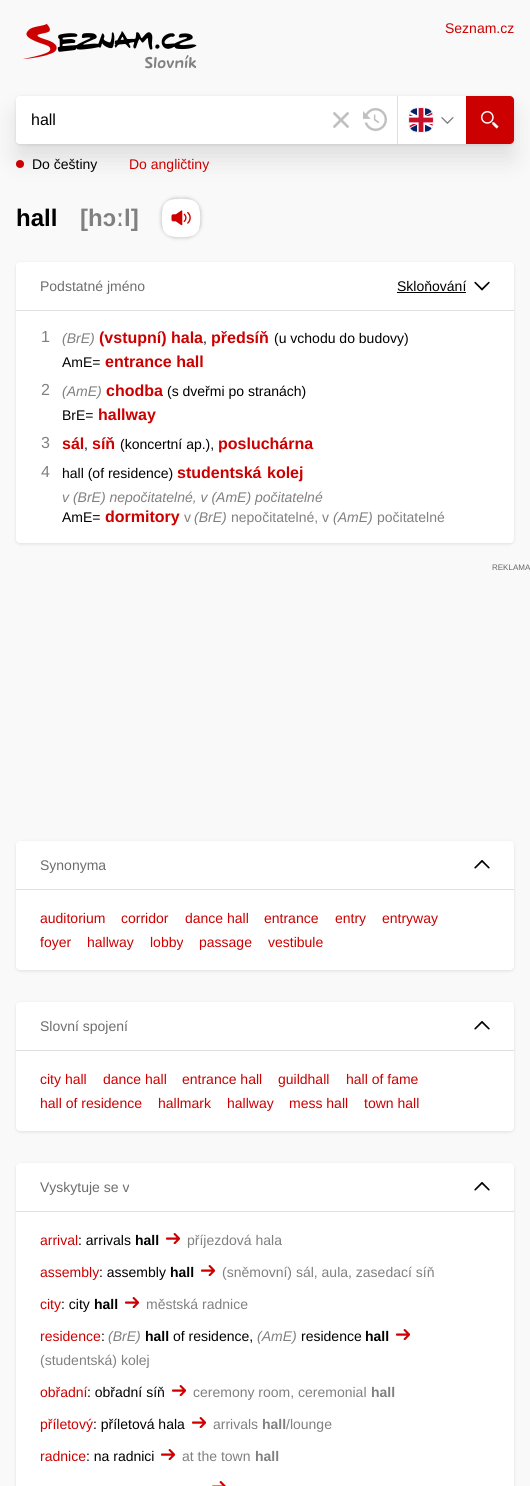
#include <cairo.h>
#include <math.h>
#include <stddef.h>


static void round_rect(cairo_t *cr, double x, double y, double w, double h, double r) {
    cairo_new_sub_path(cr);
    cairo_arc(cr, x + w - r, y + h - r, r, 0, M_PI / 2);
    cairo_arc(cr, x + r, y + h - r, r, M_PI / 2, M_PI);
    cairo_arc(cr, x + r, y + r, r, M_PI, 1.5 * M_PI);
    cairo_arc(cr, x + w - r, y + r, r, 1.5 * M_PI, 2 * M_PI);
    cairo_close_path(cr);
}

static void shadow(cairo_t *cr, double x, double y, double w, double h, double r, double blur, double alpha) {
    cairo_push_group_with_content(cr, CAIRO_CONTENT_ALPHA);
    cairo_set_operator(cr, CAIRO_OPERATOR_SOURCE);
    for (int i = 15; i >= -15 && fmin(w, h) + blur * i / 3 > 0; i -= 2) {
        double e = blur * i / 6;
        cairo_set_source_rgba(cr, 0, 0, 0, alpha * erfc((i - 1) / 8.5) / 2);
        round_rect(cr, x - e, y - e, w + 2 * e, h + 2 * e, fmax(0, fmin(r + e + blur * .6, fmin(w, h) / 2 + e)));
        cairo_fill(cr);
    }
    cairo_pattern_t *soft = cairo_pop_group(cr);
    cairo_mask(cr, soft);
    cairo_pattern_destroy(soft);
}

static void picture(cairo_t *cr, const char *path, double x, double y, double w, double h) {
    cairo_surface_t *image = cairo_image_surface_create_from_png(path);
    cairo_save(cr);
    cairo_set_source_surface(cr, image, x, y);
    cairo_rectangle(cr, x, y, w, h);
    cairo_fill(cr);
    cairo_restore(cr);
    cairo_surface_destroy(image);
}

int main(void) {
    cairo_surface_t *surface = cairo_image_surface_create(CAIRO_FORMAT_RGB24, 530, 1486);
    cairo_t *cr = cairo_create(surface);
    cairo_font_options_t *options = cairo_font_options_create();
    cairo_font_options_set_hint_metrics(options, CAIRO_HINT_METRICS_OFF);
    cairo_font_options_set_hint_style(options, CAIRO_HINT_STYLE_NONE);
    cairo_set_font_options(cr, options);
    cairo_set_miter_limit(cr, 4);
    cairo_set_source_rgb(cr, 0.973, 0.973, 0.973);
    cairo_paint(cr);
    picture(cr, "img1.png", 23, 24, 174, 45);
    cairo_select_font_face(cr, "Liberation Sans", CAIRO_FONT_SLANT_NORMAL, CAIRO_FONT_WEIGHT_NORMAL);
    cairo_set_font_size(cr, 14);
    cairo_set_source_rgb(cr, 0.8, 0, 0);
    cairo_move_to(cr, 445, 33);
    cairo_show_text(cr, "Seznam.cz");
    cairo_set_source_rgb(cr, 0, 0, 0);
    shadow(cr, 16, 97, 498, 48, 4, 1.5, 0.1);
    shadow(cr, 16, 112, 498, 48, 4, 12, 0.1);
    cairo_set_source_rgb(cr, 1, 1, 1);
    round_rect(cr, 16, 96, 498, 48, 4);
    cairo_fill(cr);
    cairo_new_path(cr);
    cairo_move_to(cr, 20, 96);
    cairo_line_to(cr, 329, 96);
    cairo_line_to(cr, 329, 144);
    cairo_line_to(cr, 20, 144);
    cairo_curve_to(cr, 18, 144, 16, 142, 16, 140);
    cairo_line_to(cr, 16, 100);
    cairo_curve_to(cr, 16, 98, 18, 96, 20, 96);
    cairo_close_path(cr);
    cairo_fill(cr);
    cairo_set_font_size(cr, 16);
    cairo_set_source_rgb(cr, 0, 0, 0);
    cairo_move_to(cr, 31, 125);
    cairo_show_text(cr, "hall");
    picture(cr, "img2.png", 333, 112, 16, 16);
    picture(cr, "img3.png", 363, 108, 24, 23);
    cairo_set_source_rgb(cr, 0.878, 0.878, 0.878);
    cairo_rectangle(cr, 397, 96, 1, 48);
    cairo_fill(cr);
    picture(cr, "img4.png", 408, 107, 26, 26);
    picture(cr, "img5.png", 441, 117, 13, 7);
    cairo_set_source_rgb(cr, 0.8, 0, 0);
    cairo_new_path(cr);
    cairo_move_to(cr, 466, 96);
    cairo_line_to(cr, 510, 96);
    cairo_curve_to(cr, 512, 96, 514, 98, 514, 100);
    cairo_line_to(cr, 514, 140);
    cairo_curve_to(cr, 514, 142, 512, 144, 510, 144);
    cairo_line_to(cr, 466, 144);
    cairo_close_path(cr);
    cairo_fill(cr);
    picture(cr, "img6.png", 481, 111, 18, 18);
    cairo_arc(cr, 20, 164, 4, 0, 2 * M_PI);
    cairo_fill(cr);
    cairo_set_font_size(cr, 14);
    cairo_set_source_rgb(cr, 0, 0, 0);
    cairo_move_to(cr, 32, 169);
    cairo_show_text(cr, "Do češtiny");
    cairo_set_source_rgb(cr, 0.8, 0, 0);
    cairo_move_to(cr, 129, 169);
    cairo_show_text(cr, "Do angličtiny");
    cairo_select_font_face(cr, "Liberation Sans", CAIRO_FONT_SLANT_NORMAL, CAIRO_FONT_WEIGHT_BOLD);
    cairo_set_font_size(cr, 24);
    cairo_set_source_rgb(cr, 0, 0, 0);
    cairo_move_to(cr, 16, 226);
    cairo_show_text(cr, "hall");
    cairo_set_source_rgb(cr, 0.502, 0.502, 0.502);
    cairo_move_to(cr, 80, 226);
    cairo_show_text(cr, "[hɔːl]");
    cairo_set_source_rgb(cr, 0.502, 0.502, 0.502);
    shadow(cr, 163, 200, 36, 36, 13, 2.5, 1);
    picture(cr, "img7.png", 161, 198, 40, 40);
    cairo_set_source_rgb(cr, 0, 0, 0);
    shadow(cr, 16, 263, 498, 281, 4, 1.5, 0.1);
    cairo_set_source_rgb(cr, 1, 1, 1);
    round_rect(cr, 16, 262, 498, 281, 4);
    cairo_fill(cr);
    cairo_set_source_rgb(cr, 0.878, 0.878, 0.878);
    cairo_rectangle(cr, 16, 310, 498, 1);
    cairo_fill(cr);
    cairo_select_font_face(cr, "Liberation Sans", CAIRO_FONT_SLANT_NORMAL, CAIRO_FONT_WEIGHT_NORMAL);
    cairo_set_font_size(cr, 14);
    cairo_set_source_rgb(cr, 0.427, 0.427, 0.427);
    cairo_move_to(cr, 40, 291);
    cairo_show_text(cr, "Podstatné jméno");
    cairo_set_source_rgb(cr, 0, 0, 0);
    cairo_move_to(cr, 397, 291);
    cairo_show_text(cr, "Skloňování");
    cairo_rectangle(cr, 397, 292, 69, 1);
    cairo_fill(cr);
    picture(cr, "img8.png", 474, 281, 16, 10);
    cairo_set_font_size(cr, 16);
    cairo_set_source_rgb(cr, 0.502, 0.502, 0.502);
    cairo_move_to(cr, 41, 342);
    cairo_show_text(cr, "1");
    cairo_select_font_face(cr, "Liberation Sans", CAIRO_FONT_SLANT_ITALIC, CAIRO_FONT_WEIGHT_NORMAL);
    cairo_set_font_size(cr, 14);
    cairo_move_to(cr, 62, 343);
    cairo_show_text(cr, "(BrE)");
    cairo_select_font_face(cr, "Liberation Sans", CAIRO_FONT_SLANT_NORMAL, CAIRO_FONT_WEIGHT_BOLD);
    cairo_set_font_size(cr, 16);
    cairo_set_source_rgb(cr, 0.8, 0, 0);
    cairo_move_to(cr, 99, 343);
    cairo_show_text(cr, "(vstupní)");
    cairo_move_to(cr, 171, 343);
    cairo_show_text(cr, "hala");
    cairo_select_font_face(cr, "Liberation Sans", CAIRO_FONT_SLANT_NORMAL, CAIRO_FONT_WEIGHT_NORMAL);
    cairo_set_font_size(cr, 14);
    cairo_set_source_rgb(cr, 0, 0, 0);
    cairo_move_to(cr, 203, 343);
    cairo_show_text(cr, ",");
    cairo_select_font_face(cr, "Liberation Sans", CAIRO_FONT_SLANT_NORMAL, CAIRO_FONT_WEIGHT_BOLD);
    cairo_set_font_size(cr, 16);
    cairo_set_source_rgb(cr, 0.8, 0, 0);
    cairo_move_to(cr, 211, 343);
    cairo_show_text(cr, "předsíň");
    cairo_select_font_face(cr, "Liberation Sans", CAIRO_FONT_SLANT_NORMAL, CAIRO_FONT_WEIGHT_NORMAL);
    cairo_set_font_size(cr, 14);
    cairo_set_source_rgb(cr, 0, 0, 0);
    cairo_move_to(cr, 274, 343);
    cairo_show_text(cr, "(u vchodu do budovy)");
    cairo_move_to(cr, 62, 367);
    cairo_show_text(cr, "AmE=");
    cairo_select_font_face(cr, "Liberation Sans", CAIRO_FONT_SLANT_NORMAL, CAIRO_FONT_WEIGHT_BOLD);
    cairo_set_font_size(cr, 16);
    cairo_set_source_rgb(cr, 0.8, 0, 0);
    cairo_move_to(cr, 105, 367);
    cairo_show_text(cr, "entrance hall");
    cairo_select_font_face(cr, "Liberation Sans", CAIRO_FONT_SLANT_NORMAL, CAIRO_FONT_WEIGHT_NORMAL);
    cairo_set_source_rgb(cr, 0.502, 0.502, 0.502);
    cairo_move_to(cr, 41, 395);
    cairo_show_text(cr, "2");
    cairo_select_font_face(cr, "Liberation Sans", CAIRO_FONT_SLANT_ITALIC, CAIRO_FONT_WEIGHT_NORMAL);
    cairo_set_font_size(cr, 14);
    cairo_move_to(cr, 62, 396);
    cairo_show_text(cr, "(AmE)");
    cairo_select_font_face(cr, "Liberation Sans", CAIRO_FONT_SLANT_NORMAL, CAIRO_FONT_WEIGHT_BOLD);
    cairo_set_font_size(cr, 16);
    cairo_set_source_rgb(cr, 0.8, 0, 0);
    cairo_move_to(cr, 106, 396);
    cairo_show_text(cr, "chodba");
    cairo_select_font_face(cr, "Liberation Sans", CAIRO_FONT_SLANT_NORMAL, CAIRO_FONT_WEIGHT_NORMAL);
    cairo_set_font_size(cr, 14);
    cairo_set_source_rgb(cr, 0, 0, 0);
    cairo_move_to(cr, 167, 396);
    cairo_show_text(cr, "(s dveřmi po stranách)");
    cairo_move_to(cr, 62, 420);
    cairo_show_text(cr, "BrE=");
    cairo_select_font_face(cr, "Liberation Sans", CAIRO_FONT_SLANT_NORMAL, CAIRO_FONT_WEIGHT_BOLD);
    cairo_set_font_size(cr, 16);
    cairo_set_source_rgb(cr, 0.8, 0, 0);
    cairo_move_to(cr, 98, 420);
    cairo_show_text(cr, "hallway");
    cairo_select_font_face(cr, "Liberation Sans", CAIRO_FONT_SLANT_NORMAL, CAIRO_FONT_WEIGHT_NORMAL);
    cairo_set_source_rgb(cr, 0.502, 0.502, 0.502);
    cairo_move_to(cr, 41, 448);
    cairo_show_text(cr, "3");
    cairo_select_font_face(cr, "Liberation Sans", CAIRO_FONT_SLANT_NORMAL, CAIRO_FONT_WEIGHT_BOLD);
    cairo_set_source_rgb(cr, 0.8, 0, 0);
    cairo_move_to(cr, 62, 449);
    cairo_show_text(cr, "sál");
    cairo_select_font_face(cr, "Liberation Sans", CAIRO_FONT_SLANT_NORMAL, CAIRO_FONT_WEIGHT_NORMAL);
    cairo_set_font_size(cr, 14);
    cairo_set_source_rgb(cr, 0, 0, 0);
    cairo_move_to(cr, 84, 449);
    cairo_show_text(cr, ",");
    cairo_select_font_face(cr, "Liberation Sans", CAIRO_FONT_SLANT_NORMAL, CAIRO_FONT_WEIGHT_BOLD);
    cairo_set_font_size(cr, 16);
    cairo_set_source_rgb(cr, 0.8, 0, 0);
    cairo_move_to(cr, 92, 449);
    cairo_show_text(cr, "síň");
    cairo_select_font_face(cr, "Liberation Sans", CAIRO_FONT_SLANT_NORMAL, CAIRO_FONT_WEIGHT_NORMAL);
    cairo_set_font_size(cr, 14);
    cairo_set_source_rgb(cr, 0, 0, 0);
    cairo_move_to(cr, 120, 449);
    cairo_show_text(cr, "(koncertní ap.),");
    cairo_select_font_face(cr, "Liberation Sans", CAIRO_FONT_SLANT_NORMAL, CAIRO_FONT_WEIGHT_BOLD);
    cairo_set_font_size(cr, 16);
    cairo_set_source_rgb(cr, 0.8, 0, 0);
    cairo_move_to(cr, 218, 449);
    cairo_show_text(cr, "posluchárna");
    cairo_select_font_face(cr, "Liberation Sans", CAIRO_FONT_SLANT_NORMAL, CAIRO_FONT_WEIGHT_NORMAL);
    cairo_set_source_rgb(cr, 0.502, 0.502, 0.502);
    cairo_move_to(cr, 41, 477);
    cairo_show_text(cr, "4");
    cairo_set_font_size(cr, 14);
    cairo_set_source_rgb(cr, 0, 0, 0);
    cairo_move_to(cr, 62, 478);
    cairo_show_text(cr, "hall (of residence)");
    cairo_select_font_face(cr, "Liberation Sans", CAIRO_FONT_SLANT_NORMAL, CAIRO_FONT_WEIGHT_BOLD);
    cairo_set_font_size(cr, 16);
    cairo_set_source_rgb(cr, 0.8, 0, 0);
    cairo_move_to(cr, 177, 478);
    cairo_show_text(cr, "studentská");
    cairo_move_to(cr, 267, 478);
    cairo_show_text(cr, "kolej");
    cairo_select_font_face(cr, "Liberation Sans", CAIRO_FONT_SLANT_ITALIC, CAIRO_FONT_WEIGHT_NORMAL);
    cairo_set_font_size(cr, 14);
    cairo_set_source_rgb(cr, 0.502, 0.502, 0.502);
    cairo_move_to(cr, 62, 502);
    cairo_show_text(cr, "v (BrE) nepočitatelné, v (AmE) počitatelné");
    cairo_select_font_face(cr, "Liberation Sans", CAIRO_FONT_SLANT_NORMAL, CAIRO_FONT_WEIGHT_NORMAL);
    cairo_set_source_rgb(cr, 0, 0, 0);
    cairo_move_to(cr, 62, 522);
    cairo_show_text(cr, "AmE=");
    cairo_select_font_face(cr, "Liberation Sans", CAIRO_FONT_SLANT_NORMAL, CAIRO_FONT_WEIGHT_BOLD);
    cairo_set_font_size(cr, 16);
    cairo_set_source_rgb(cr, 0.8, 0, 0);
    cairo_move_to(cr, 105, 522);
    cairo_show_text(cr, "dormitory");
    cairo_select_font_face(cr, "Liberation Sans", CAIRO_FONT_SLANT_NORMAL, CAIRO_FONT_WEIGHT_NORMAL);
    cairo_set_font_size(cr, 14);
    cairo_set_source_rgb(cr, 0.502, 0.502, 0.502);
    cairo_move_to(cr, 184, 522);
    cairo_show_text(cr, "v");
    cairo_select_font_face(cr, "Liberation Sans", CAIRO_FONT_SLANT_ITALIC, CAIRO_FONT_WEIGHT_NORMAL);
    cairo_move_to(cr, 194, 522);
    cairo_show_text(cr, "(BrE)");
    cairo_select_font_face(cr, "Liberation Sans", CAIRO_FONT_SLANT_NORMAL, CAIRO_FONT_WEIGHT_NORMAL);
    cairo_move_to(cr, 231, 522);
    cairo_show_text(cr, "nepočitatelné, v");
    cairo_select_font_face(cr, "Liberation Sans", CAIRO_FONT_SLANT_ITALIC, CAIRO_FONT_WEIGHT_NORMAL);
    cairo_move_to(cr, 333, 522);
    cairo_show_text(cr, "(AmE)");
    cairo_select_font_face(cr, "Liberation Sans", CAIRO_FONT_SLANT_NORMAL, CAIRO_FONT_WEIGHT_NORMAL);
    cairo_move_to(cr, 377, 522);
    cairo_show_text(cr, "počitatelné");
    cairo_set_font_size(cr, 8);
    cairo_set_source_rgb(cr, 0.4, 0.4, 0.4);
    cairo_move_to(cr, 492, 570);
    cairo_show_text(cr, "REKLAMA");
    cairo_set_source_rgb(cr, 0, 0, 0);
    shadow(cr, 16, 842, 498, 129, 4, 1.5, 0.1);
    cairo_set_source_rgb(cr, 1, 1, 1);
    round_rect(cr, 16, 841, 498, 129, 4);
    cairo_fill(cr);
    cairo_set_source_rgb(cr, 0.878, 0.878, 0.878);
    cairo_rectangle(cr, 16, 889, 498, 1);
    cairo_fill(cr);
    cairo_set_font_size(cr, 14);
    cairo_set_source_rgb(cr, 0.427, 0.427, 0.427);
    cairo_move_to(cr, 40, 870);
    cairo_show_text(cr, "Synonyma");
    picture(cr, "img9.png", 474, 860, 16, 9);
    cairo_set_source_rgb(cr, 0.8, 0, 0);
    cairo_move_to(cr, 40, 923);
    cairo_show_text(cr, "auditorium");
    cairo_move_to(cr, 121, 923);
    cairo_show_text(cr, "corridor");
    cairo_move_to(cr, 185, 923);
    cairo_show_text(cr, "dance hall");
    cairo_move_to(cr, 264, 923);
    cairo_show_text(cr, "entrance");
    cairo_move_to(cr, 335, 923);
    cairo_show_text(cr, "entry");
    cairo_move_to(cr, 382, 923);
    cairo_show_text(cr, "entryway");
    cairo_move_to(cr, 40, 947);
    cairo_show_text(cr, "foyer");
    cairo_move_to(cr, 87, 947);
    cairo_show_text(cr, "hallway");
    cairo_move_to(cr, 150, 947);
    cairo_show_text(cr, "lobby");
    cairo_move_to(cr, 199, 947);
    cairo_show_text(cr, "passage");
    cairo_move_to(cr, 268, 947);
    cairo_show_text(cr, "vestibule");
    cairo_set_source_rgb(cr, 0, 0, 0);
    shadow(cr, 16, 1003, 498, 129, 4, 1.5, 0.1);
    cairo_set_source_rgb(cr, 1, 1, 1);
    round_rect(cr, 16, 1002, 498, 129, 4);
    cairo_fill(cr);
    cairo_set_source_rgb(cr, 0.878, 0.878, 0.878);
    cairo_rectangle(cr, 16, 1050, 498, 1);
    cairo_fill(cr);
    cairo_set_source_rgb(cr, 0.427, 0.427, 0.427);
    cairo_move_to(cr, 40, 1031);
    cairo_show_text(cr, "Slovní spojení");
    picture(cr, "img9.png", 474, 1021, 16, 9);
    cairo_set_source_rgb(cr, 0.8, 0, 0);
    cairo_move_to(cr, 40, 1084);
    cairo_show_text(cr, "city hall");
    cairo_move_to(cr, 103, 1084);
    cairo_show_text(cr, "dance hall");
    cairo_move_to(cr, 182, 1084);
    cairo_show_text(cr, "entrance hall");
    cairo_move_to(cr, 278, 1084);
    cairo_show_text(cr, "guildhall");
    cairo_move_to(cr, 346, 1084);
    cairo_show_text(cr, "hall of fame");
    cairo_move_to(cr, 40, 1108);
    cairo_show_text(cr, "hall of residence");
    cairo_move_to(cr, 158, 1108);
    cairo_show_text(cr, "hallmark");
    cairo_move_to(cr, 227, 1108);
    cairo_show_text(cr, "hallway");
    cairo_move_to(cr, 289, 1108);
    cairo_show_text(cr, "mess hall");
    cairo_move_to(cr, 364, 1108);
    cairo_show_text(cr, "town hall");
    cairo_set_source_rgb(cr, 0, 0, 0);
    shadow(cr, 16, 1164, 498, 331, 4, 1.5, 0.1);
    cairo_set_source_rgb(cr, 1, 1, 1);
    round_rect(cr, 16, 1163, 498, 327, 4);
    cairo_fill(cr);
    cairo_set_source_rgb(cr, 0.878, 0.878, 0.878);
    cairo_rectangle(cr, 16, 1211, 498, 1);
    cairo_fill(cr);
    cairo_set_source_rgb(cr, 0.427, 0.427, 0.427);
    cairo_move_to(cr, 40, 1192);
    cairo_show_text(cr, "Vyskytuje se v");
    picture(cr, "img9.png", 474, 1182, 16, 9);
    cairo_set_source_rgb(cr, 0.8, 0, 0);
    cairo_move_to(cr, 40, 1245);
    cairo_show_text(cr, "arrival");
    cairo_set_source_rgb(cr, 0, 0, 0);
    cairo_move_to(cr, 78, 1245);
    cairo_show_text(cr, ": arrivals");
    cairo_select_font_face(cr, "Liberation Sans", CAIRO_FONT_SLANT_NORMAL, CAIRO_FONT_WEIGHT_BOLD);
    cairo_move_to(cr, 135, 1245);
    cairo_show_text(cr, "hall");
    picture(cr, "img10.png", 166, 1233, 14, 11);
    cairo_select_font_face(cr, "Liberation Sans", CAIRO_FONT_SLANT_NORMAL, CAIRO_FONT_WEIGHT_NORMAL);
    cairo_set_source_rgb(cr, 0.502, 0.502, 0.502);
    cairo_move_to(cr, 187, 1245);
    cairo_show_text(cr, "příjezdová hala");
    cairo_set_source_rgb(cr, 0.8, 0, 0);
    cairo_move_to(cr, 40, 1277);
    cairo_show_text(cr, "assembly");
    cairo_set_source_rgb(cr, 0, 0, 0);
    cairo_move_to(cr, 99, 1277);
    cairo_show_text(cr, ": assembly");
    cairo_select_font_face(cr, "Liberation Sans", CAIRO_FONT_SLANT_NORMAL, CAIRO_FONT_WEIGHT_BOLD);
    cairo_move_to(cr, 170, 1277);
    cairo_show_text(cr, "hall");
    picture(cr, "img10.png", 201, 1265, 14, 11);
    cairo_select_font_face(cr, "Liberation Sans", CAIRO_FONT_SLANT_NORMAL, CAIRO_FONT_WEIGHT_NORMAL);
    cairo_set_source_rgb(cr, 0.502, 0.502, 0.502);
    cairo_move_to(cr, 222, 1277);
    cairo_show_text(cr, "(sněmovní) sál, aula, zasedací síň");
    cairo_set_source_rgb(cr, 0.8, 0, 0);
    cairo_move_to(cr, 40, 1309);
    cairo_show_text(cr, "city");
    cairo_set_source_rgb(cr, 0, 0, 0);
    cairo_move_to(cr, 61, 1309);
    cairo_show_text(cr, ": city");
    cairo_select_font_face(cr, "Liberation Sans", CAIRO_FONT_SLANT_NORMAL, CAIRO_FONT_WEIGHT_BOLD);
    cairo_move_to(cr, 94, 1309);
    cairo_show_text(cr, "hall");
    picture(cr, "img10.png", 125, 1297, 14, 11);
    cairo_select_font_face(cr, "Liberation Sans", CAIRO_FONT_SLANT_NORMAL, CAIRO_FONT_WEIGHT_NORMAL);
    cairo_set_source_rgb(cr, 0.502, 0.502, 0.502);
    cairo_move_to(cr, 146, 1309);
    cairo_show_text(cr, "městská radnice");
    cairo_set_source_rgb(cr, 0.8, 0, 0);
    cairo_move_to(cr, 40, 1341);
    cairo_show_text(cr, "residence");
    cairo_set_source_rgb(cr, 0, 0, 0);
    cairo_move_to(cr, 101, 1341);
    cairo_show_text(cr, ":");
    cairo_select_font_face(cr, "Liberation Sans", CAIRO_FONT_SLANT_ITALIC, CAIRO_FONT_WEIGHT_NORMAL);
    cairo_set_source_rgb(cr, 0.502, 0.502, 0.502);
    cairo_move_to(cr, 108, 1341);
    cairo_show_text(cr, "(BrE)");
    cairo_select_font_face(cr, "Liberation Sans", CAIRO_FONT_SLANT_NORMAL, CAIRO_FONT_WEIGHT_BOLD);
    cairo_set_source_rgb(cr, 0, 0, 0);
    cairo_move_to(cr, 145, 1341);
    cairo_show_text(cr, "hall");
    cairo_select_font_face(cr, "Liberation Sans", CAIRO_FONT_SLANT_NORMAL, CAIRO_FONT_WEIGHT_NORMAL);
    cairo_move_to(cr, 173, 1341);
    cairo_show_text(cr, "of residence,");
    cairo_select_font_face(cr, "Liberation Sans", CAIRO_FONT_SLANT_ITALIC, CAIRO_FONT_WEIGHT_NORMAL);
    cairo_set_source_rgb(cr, 0.502, 0.502, 0.502);
    cairo_move_to(cr, 257, 1341);
    cairo_show_text(cr, "(AmE)");
    cairo_select_font_face(cr, "Liberation Sans", CAIRO_FONT_SLANT_NORMAL, CAIRO_FONT_WEIGHT_NORMAL);
    cairo_set_source_rgb(cr, 0, 0, 0);
    cairo_move_to(cr, 301, 1341);
    cairo_show_text(cr, "residence");
    cairo_select_font_face(cr, "Liberation Sans", CAIRO_FONT_SLANT_NORMAL, CAIRO_FONT_WEIGHT_BOLD);
    cairo_move_to(cr, 365, 1341);
    cairo_show_text(cr, "hall");
    picture(cr, "img10.png", 396, 1329, 14, 11);
    cairo_select_font_face(cr, "Liberation Sans", CAIRO_FONT_SLANT_NORMAL, CAIRO_FONT_WEIGHT_NORMAL);
    cairo_set_source_rgb(cr, 0.502, 0.502, 0.502);
    cairo_move_to(cr, 40, 1365);
    cairo_show_text(cr, "(studentská) kolej");
    cairo_set_source_rgb(cr, 0.8, 0, 0);
    cairo_move_to(cr, 40, 1397);
    cairo_show_text(cr, "obřadní");
    cairo_set_source_rgb(cr, 0, 0, 0);
    cairo_move_to(cr, 87, 1397);
    cairo_show_text(cr, ": obřadní síň");
    picture(cr, "img10.png", 172, 1385, 14, 11);
    cairo_set_source_rgb(cr, 0.502, 0.502, 0.502);
    cairo_move_to(cr, 193, 1397);
    cairo_show_text(cr, "ceremony room, ceremonial");
    cairo_select_font_face(cr, "Liberation Sans", CAIRO_FONT_SLANT_NORMAL, CAIRO_FONT_WEIGHT_BOLD);
    cairo_move_to(cr, 371, 1397);
    cairo_show_text(cr, "hall");
    cairo_select_font_face(cr, "Liberation Sans", CAIRO_FONT_SLANT_NORMAL, CAIRO_FONT_WEIGHT_NORMAL);
    cairo_set_source_rgb(cr, 0.8, 0, 0);
    cairo_move_to(cr, 40, 1429);
    cairo_show_text(cr, "příletový");
    cairo_set_source_rgb(cr, 0, 0, 0);
    cairo_move_to(cr, 93, 1429);
    cairo_show_text(cr, ": příletová hala");
    picture(cr, "img10.png", 192, 1417, 14, 11);
    cairo_set_source_rgb(cr, 0.502, 0.502, 0.502);
    cairo_move_to(cr, 213, 1429);
    cairo_show_text(cr, "arrivals");
    cairo_select_font_face(cr, "Liberation Sans", CAIRO_FONT_SLANT_NORMAL, CAIRO_FONT_WEIGHT_BOLD);
    cairo_move_to(cr, 262, 1429);
    cairo_show_text(cr, "hall");
    cairo_select_font_face(cr, "Liberation Sans", CAIRO_FONT_SLANT_NORMAL, CAIRO_FONT_WEIGHT_NORMAL);
    cairo_move_to(cr, 286, 1429);
    cairo_show_text(cr, "/lounge");
    cairo_set_source_rgb(cr, 0.8, 0, 0);
    cairo_move_to(cr, 40, 1461);
    cairo_show_text(cr, "radnice");
    cairo_set_source_rgb(cr, 0, 0, 0);
    cairo_move_to(cr, 86, 1461);
    cairo_show_text(cr, ": na radnici");
    picture(cr, "img10.png", 161, 1449, 14, 11);
    cairo_set_source_rgb(cr, 0.502, 0.502, 0.502);
    cairo_move_to(cr, 182, 1461);
    cairo_show_text(cr, "at the town");
    cairo_select_font_face(cr, "Liberation Sans", CAIRO_FONT_SLANT_NORMAL, CAIRO_FONT_WEIGHT_BOLD);
    cairo_move_to(cr, 255, 1461);
    cairo_show_text(cr, "hall");
    picture(cr, "img11.png", 212, 1481, 14, 5);
    cairo_surface_write_to_png(surface, "page.png");
    cairo_font_options_destroy(options);
    cairo_destroy(cr);
    cairo_surface_destroy(surface);
    return 0;
}
